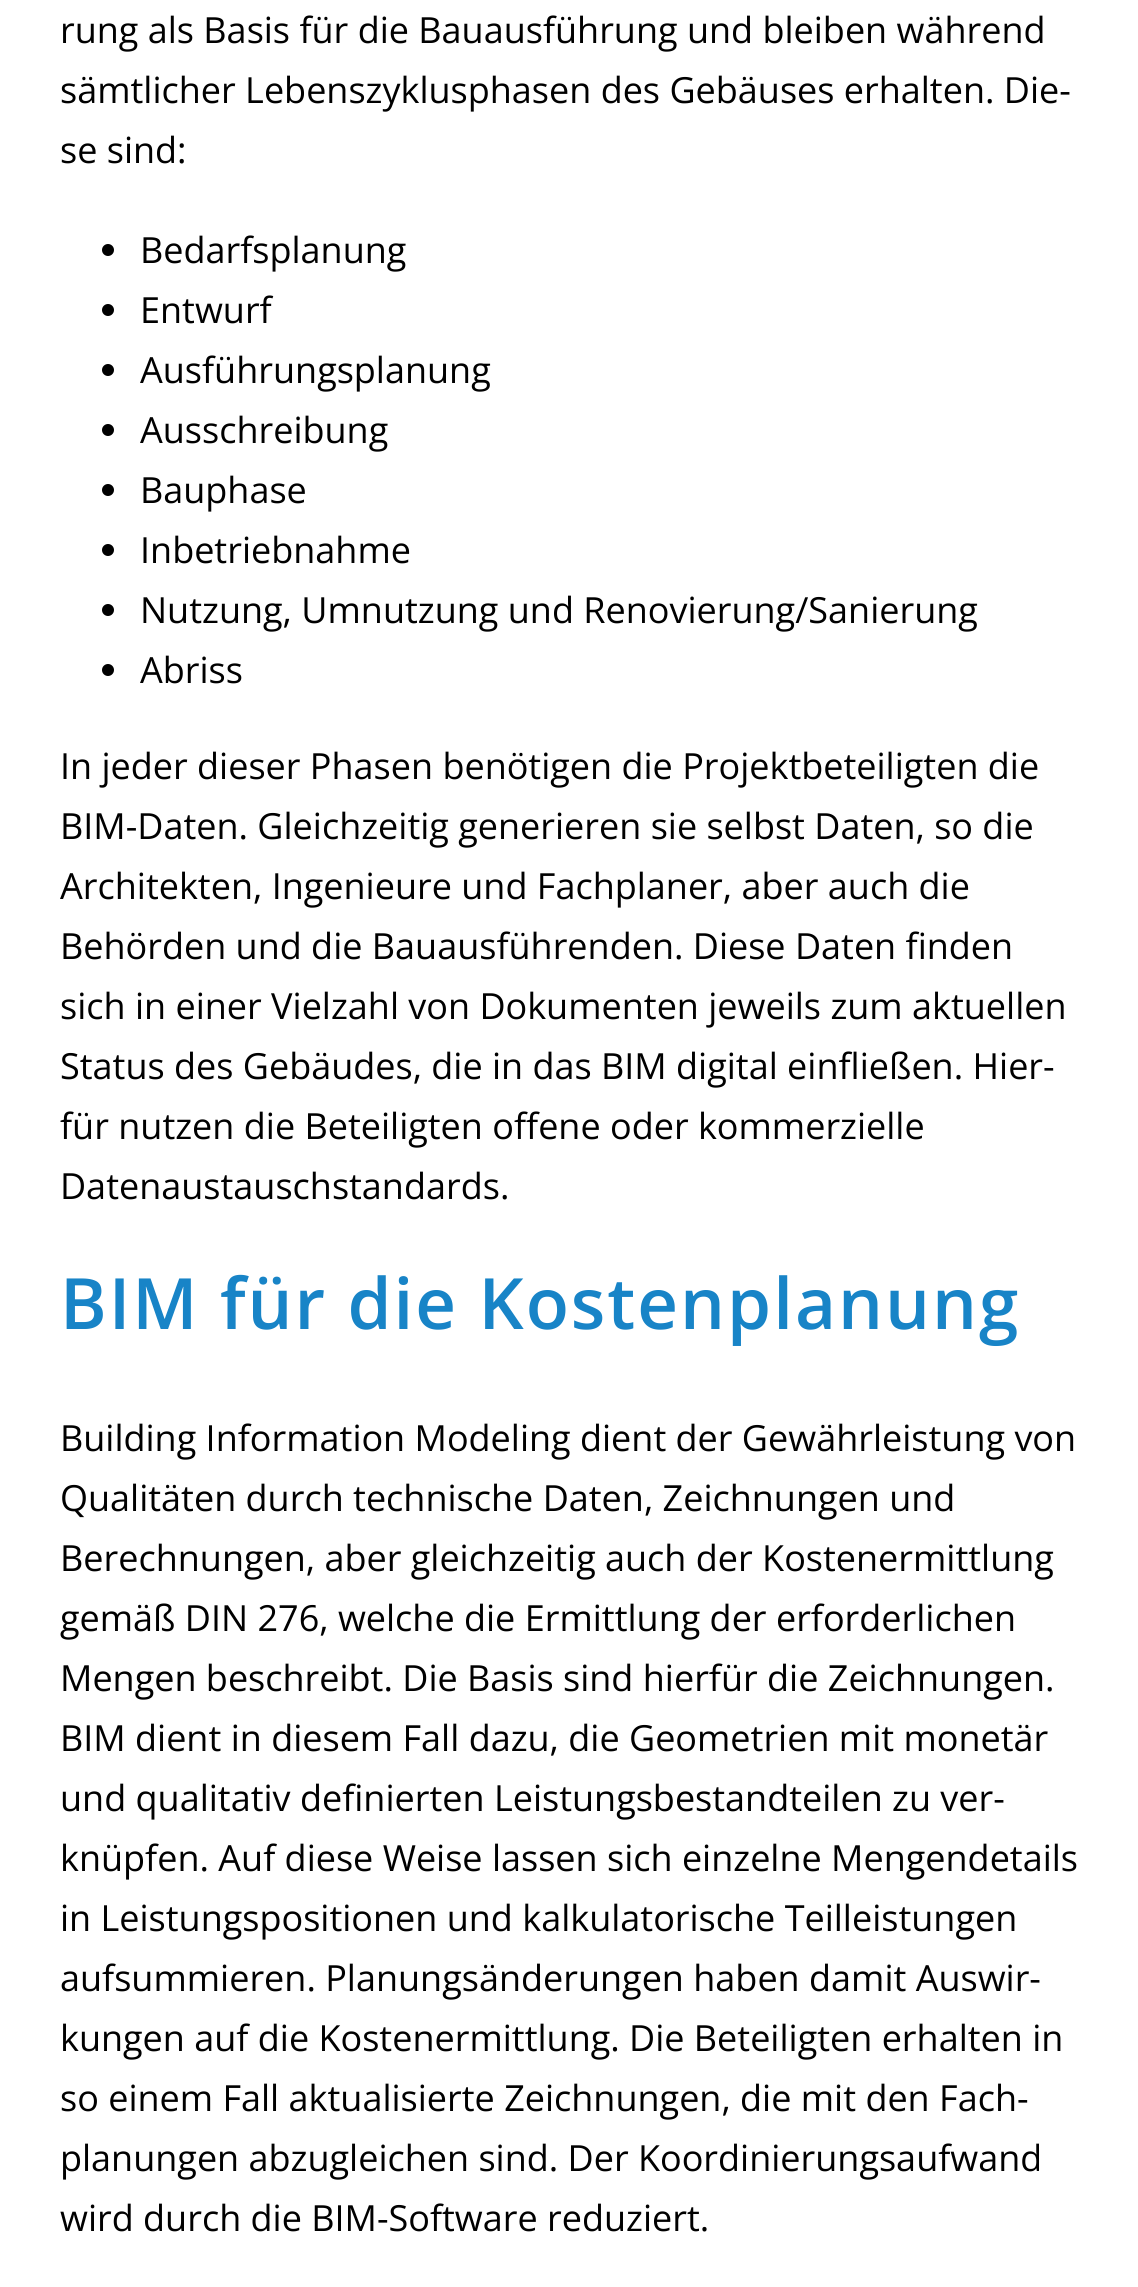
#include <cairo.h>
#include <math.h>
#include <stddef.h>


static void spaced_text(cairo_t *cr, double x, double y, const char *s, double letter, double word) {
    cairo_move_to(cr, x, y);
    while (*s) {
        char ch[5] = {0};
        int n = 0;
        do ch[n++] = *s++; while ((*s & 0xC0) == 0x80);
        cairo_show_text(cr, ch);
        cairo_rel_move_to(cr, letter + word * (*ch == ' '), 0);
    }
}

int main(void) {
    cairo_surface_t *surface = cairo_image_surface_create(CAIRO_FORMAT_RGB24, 1138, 2287);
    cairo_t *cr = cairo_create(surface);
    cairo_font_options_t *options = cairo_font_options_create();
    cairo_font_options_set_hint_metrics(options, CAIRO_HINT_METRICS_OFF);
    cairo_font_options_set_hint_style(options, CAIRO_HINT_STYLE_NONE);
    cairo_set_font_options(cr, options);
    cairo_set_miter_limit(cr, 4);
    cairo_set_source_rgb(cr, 1, 1, 1);
    cairo_paint(cr);
    cairo_select_font_face(cr, "Open Sans", CAIRO_FONT_SLANT_NORMAL, CAIRO_FONT_WEIGHT_NORMAL);
    cairo_set_font_size(cr, 36);
    cairo_set_source_rgb(cr, 0, 0, 0);
    cairo_move_to(cr, 60, 43);
    cairo_show_text(cr, "rung als Basis für die Bauausführung und bleiben während");
    cairo_move_to(cr, 60, 103);
    cairo_show_text(cr, "sämtlicher Lebenszyklusphasen des Gebäuses erhalten. Die-");
    cairo_move_to(cr, 60, 163);
    cairo_show_text(cr, "se sind:");
    cairo_new_path(cr);
    cairo_arc(cr, 108, 250, 6, 0, 2 * M_PI);
    cairo_fill(cr);
    cairo_move_to(cr, 140, 263);
    cairo_show_text(cr, "Bedarfsplanung");
    cairo_new_path(cr);
    cairo_arc(cr, 108, 310, 6, 0, 2 * M_PI);
    cairo_fill(cr);
    cairo_move_to(cr, 140, 323);
    cairo_show_text(cr, "Entwurf");
    cairo_new_path(cr);
    cairo_arc(cr, 108, 370, 6, 0, 2 * M_PI);
    cairo_fill(cr);
    cairo_move_to(cr, 140, 383);
    cairo_show_text(cr, "Ausführungsplanung");
    cairo_new_path(cr);
    cairo_arc(cr, 108, 430, 6, 0, 2 * M_PI);
    cairo_fill(cr);
    cairo_move_to(cr, 140, 443);
    cairo_show_text(cr, "Ausschreibung");
    cairo_new_path(cr);
    cairo_arc(cr, 108, 490, 6, 0, 2 * M_PI);
    cairo_fill(cr);
    cairo_move_to(cr, 140, 503);
    cairo_show_text(cr, "Bauphase");
    cairo_new_path(cr);
    cairo_arc(cr, 108, 550, 6, 0, 2 * M_PI);
    cairo_fill(cr);
    cairo_move_to(cr, 140, 563);
    cairo_show_text(cr, "Inbetriebnahme");
    cairo_new_path(cr);
    cairo_arc(cr, 108, 610, 6, 0, 2 * M_PI);
    cairo_fill(cr);
    cairo_move_to(cr, 140, 623);
    cairo_show_text(cr, "Nutzung, Umnutzung und Renovierung/Sanierung");
    cairo_new_path(cr);
    cairo_arc(cr, 108, 670, 6, 0, 2 * M_PI);
    cairo_fill(cr);
    cairo_move_to(cr, 140, 683);
    cairo_show_text(cr, "Abriss");
    cairo_move_to(cr, 60, 779);
    cairo_show_text(cr, "In jeder dieser Phasen benötigen die Projektbeteiligten die");
    cairo_move_to(cr, 60, 839);
    cairo_show_text(cr, "BIM-Daten. Gleichzeitig generieren sie selbst Daten, so die");
    cairo_move_to(cr, 60, 899);
    cairo_show_text(cr, "Architekten, Ingenieure und Fachplaner, aber auch die");
    cairo_move_to(cr, 60, 959);
    cairo_show_text(cr, "Behörden und die Bauausführenden. Diese Daten finden");
    cairo_move_to(cr, 60, 1019);
    cairo_show_text(cr, "sich in einer Vielzahl von Dokumenten jeweils zum aktuellen");
    cairo_move_to(cr, 60, 1079);
    cairo_show_text(cr, "Status des Gebäudes, die in das BIM digital einfließen. Hier-");
    cairo_move_to(cr, 60, 1139);
    cairo_show_text(cr, "für nutzen die Beteiligten offene oder kommerzielle");
    cairo_move_to(cr, 60, 1199);
    cairo_show_text(cr, "Datenaustauschstandards.");
    cairo_select_font_face(cr, "Open Sans SemiBold", CAIRO_FONT_SLANT_NORMAL, CAIRO_FONT_WEIGHT_NORMAL);
    cairo_set_font_size(cr, 70.8);
    cairo_set_source_rgb(cr, 0.094, 0.518, 0.78);
    spaced_text(cr, 60, 1329, "BIM für die Kostenplanung", 2, 0);
    cairo_select_font_face(cr, "Open Sans", CAIRO_FONT_SLANT_NORMAL, CAIRO_FONT_WEIGHT_NORMAL);
    cairo_set_font_size(cr, 36);
    cairo_set_source_rgb(cr, 0, 0, 0);
    cairo_move_to(cr, 60, 1451);
    cairo_show_text(cr, "Building Information Modeling dient der Gewährleistung von");
    cairo_move_to(cr, 60, 1511);
    cairo_show_text(cr, "Qualitäten durch technische Daten, Zeichnungen und");
    cairo_move_to(cr, 60, 1571);
    cairo_show_text(cr, "Berechnungen, aber gleichzeitig auch der Kostenermittlung");
    cairo_move_to(cr, 60, 1631);
    cairo_show_text(cr, "gemäß DIN 276, welche die Ermittlung der erforderlichen");
    cairo_move_to(cr, 60, 1691);
    cairo_show_text(cr, "Mengen beschreibt. Die Basis sind hierfür die Zeichnungen.");
    cairo_move_to(cr, 60, 1751);
    cairo_show_text(cr, "BIM dient in diesem Fall dazu, die Geometrien mit monetär");
    cairo_move_to(cr, 60, 1811);
    cairo_show_text(cr, "und qualitativ definierten Leistungsbestandteilen zu ver-");
    cairo_move_to(cr, 60, 1871);
    cairo_show_text(cr, "knüpfen. Auf diese Weise lassen sich einzelne Mengendetails");
    cairo_move_to(cr, 60, 1931);
    cairo_show_text(cr, "in Leistungspositionen und kalkulatorische Teilleistungen");
    cairo_move_to(cr, 60, 1991);
    cairo_show_text(cr, "aufsummieren. Planungsänderungen haben damit Auswir-");
    cairo_move_to(cr, 60, 2051);
    cairo_show_text(cr, "kungen auf die Kostenermittlung. Die Beteiligten erhalten in");
    cairo_move_to(cr, 60, 2111);
    cairo_show_text(cr, "so einem Fall aktualisierte Zeichnungen, die mit den Fach-");
    cairo_move_to(cr, 60, 2171);
    cairo_show_text(cr, "planungen abzugleichen sind. Der Koordinierungsaufwand");
    cairo_move_to(cr, 60, 2231);
    cairo_show_text(cr, "wird durch die BIM-Software reduziert.");
    cairo_surface_write_to_png(surface, "page.png");
    cairo_font_options_destroy(options);
    cairo_destroy(cr);
    cairo_surface_destroy(surface);
    return 0;
}
